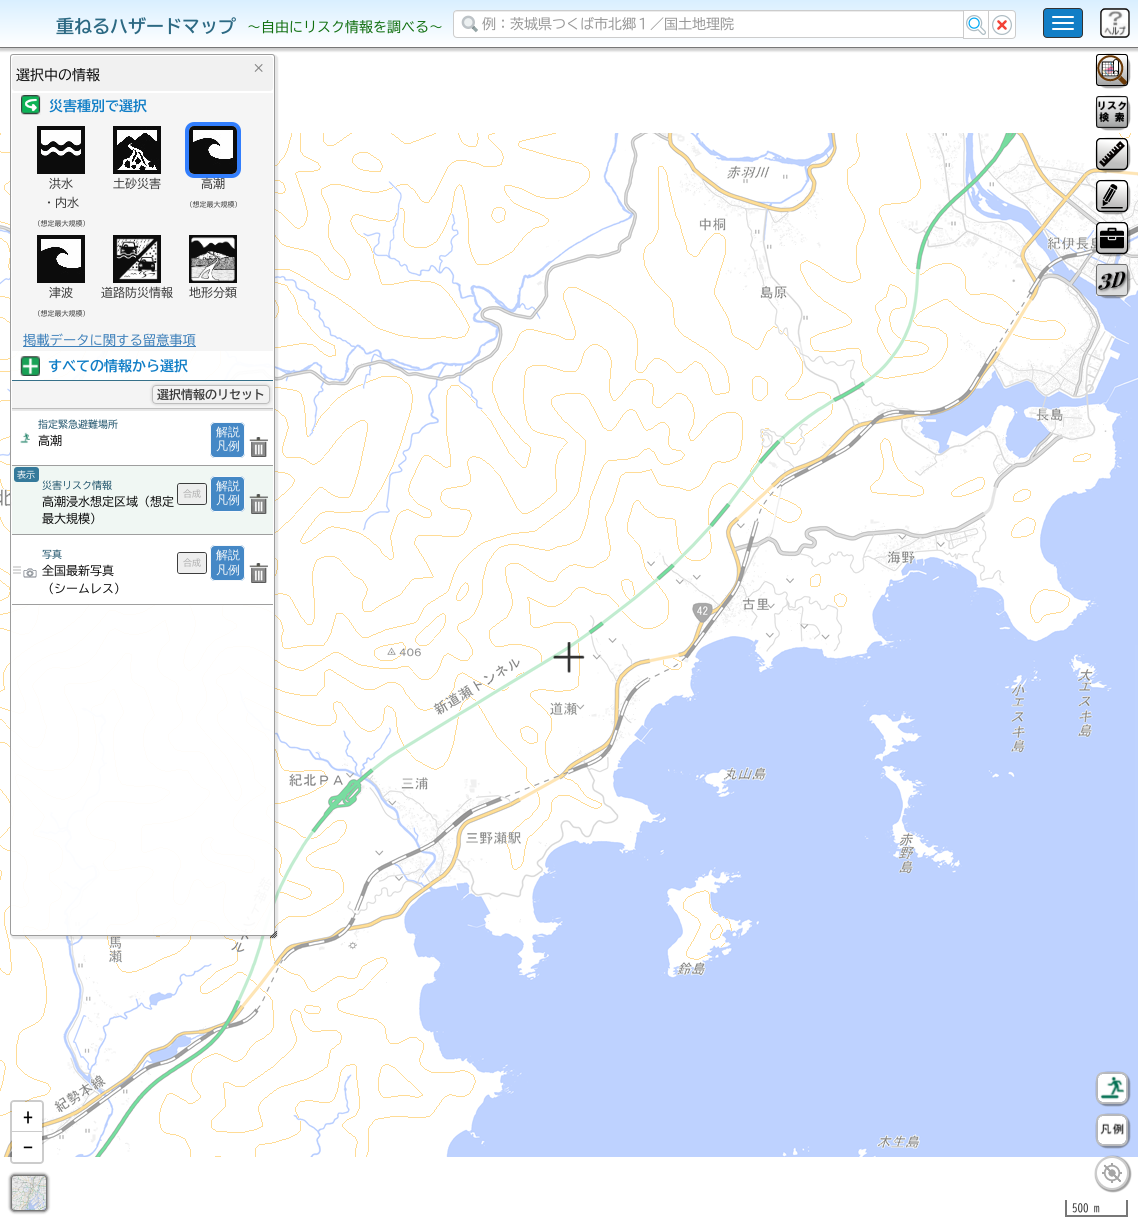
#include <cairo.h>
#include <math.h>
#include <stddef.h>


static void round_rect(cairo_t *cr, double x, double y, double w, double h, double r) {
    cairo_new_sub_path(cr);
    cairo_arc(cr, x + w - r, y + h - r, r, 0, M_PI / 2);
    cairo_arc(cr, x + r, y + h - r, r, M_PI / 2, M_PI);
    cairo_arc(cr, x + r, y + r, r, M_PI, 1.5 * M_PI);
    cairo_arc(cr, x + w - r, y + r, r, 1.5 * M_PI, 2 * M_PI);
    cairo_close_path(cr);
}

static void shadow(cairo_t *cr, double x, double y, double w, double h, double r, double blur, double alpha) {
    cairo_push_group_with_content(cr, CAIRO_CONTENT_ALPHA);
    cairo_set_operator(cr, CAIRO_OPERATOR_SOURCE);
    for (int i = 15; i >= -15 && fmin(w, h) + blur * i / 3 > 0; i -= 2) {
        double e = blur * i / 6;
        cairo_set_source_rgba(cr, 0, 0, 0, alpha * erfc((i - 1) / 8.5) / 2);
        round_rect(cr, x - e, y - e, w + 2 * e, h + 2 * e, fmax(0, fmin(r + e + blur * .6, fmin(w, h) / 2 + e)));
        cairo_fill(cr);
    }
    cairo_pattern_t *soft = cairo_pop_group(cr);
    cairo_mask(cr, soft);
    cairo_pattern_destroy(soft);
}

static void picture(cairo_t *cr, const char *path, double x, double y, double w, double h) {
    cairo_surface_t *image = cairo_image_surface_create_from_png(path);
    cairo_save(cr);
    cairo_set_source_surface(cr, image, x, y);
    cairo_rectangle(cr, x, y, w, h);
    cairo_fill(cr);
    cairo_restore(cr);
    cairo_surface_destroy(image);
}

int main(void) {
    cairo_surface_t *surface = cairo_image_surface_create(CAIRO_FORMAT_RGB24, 1138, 1228);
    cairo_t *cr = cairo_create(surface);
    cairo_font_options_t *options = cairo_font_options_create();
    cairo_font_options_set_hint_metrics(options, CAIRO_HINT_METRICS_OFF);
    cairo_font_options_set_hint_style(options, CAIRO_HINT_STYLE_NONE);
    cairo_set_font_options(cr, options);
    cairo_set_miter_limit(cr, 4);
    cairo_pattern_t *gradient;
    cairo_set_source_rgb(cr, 1, 1, 1);
    cairo_paint(cr);
    cairo_set_source_rgb(cr, 0.251, 0.251, 0.251);
    shadow(cr, 1096, 54, 34, 34, 11, 0.5, 0.5);
    picture(cr, "img41.png", 1096, 54, 32, 32);
    cairo_set_source_rgb(cr, 0, 0, 0);
    shadow(cr, -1, 1, 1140, 50, 0, 1, 0.2);
    cairo_set_source_rgb(cr, 0.467, 0.467, 0.467);
    cairo_rectangle(cr, 0, 47, 1138, 1);
    cairo_fill(cr);
    gradient = cairo_pattern_create_linear(569, 0, 569, 47);
    cairo_pattern_add_color_stop_rgba(gradient, 0, 0.851, 0.937, 1, 1);
    cairo_pattern_add_color_stop_rgba(gradient, 1, 1, 1, 1, 1);
    cairo_set_source(cr, gradient);
    cairo_pattern_destroy(gradient);
    cairo_rectangle(cr, 0, 0, 1138, 47);
    cairo_fill(cr);
    cairo_select_font_face(cr, "BIZ UDGothic", CAIRO_FONT_SLANT_NORMAL, CAIRO_FONT_WEIGHT_BOLD);
    cairo_set_font_size(cr, 18);
    cairo_set_source_rgb(cr, 0.173, 0.412, 0.514);
    cairo_move_to(cr, 56, 33);
    cairo_show_text(cr, "重ねるハザードマップ");
    cairo_select_font_face(cr, "BIZ UDGothic", CAIRO_FONT_SLANT_NORMAL, CAIRO_FONT_WEIGHT_NORMAL);
    cairo_set_font_size(cr, 14);
    cairo_set_source_rgb(cr, 0.063, 0.435, 0.059);
    cairo_move_to(cr, 247, 32);
    cairo_show_text(cr, "～自由にリスク情報を調べる～");
    cairo_set_source_rgb(cr, 1, 1, 1);
    cairo_new_path(cr);
    cairo_move_to(cr, 457, 10);
    cairo_line_to(cr, 964, 10);
    cairo_line_to(cr, 964, 38);
    cairo_line_to(cr, 457, 38);
    cairo_curve_to(cr, 455, 38, 453, 36, 453, 34);
    cairo_line_to(cr, 453, 14);
    cairo_curve_to(cr, 453, 12, 455, 10, 457, 10);
    cairo_close_path(cr);
    cairo_fill(cr);
    picture(cr, "img1.png", 461, 15, 17, 18);
    cairo_set_source_rgb(cr, 0.925, 0.925, 0.925);
    cairo_new_path(cr);
    cairo_move_to(cr, 457, 12);
    cairo_line_to(cr, 963, 12);
    cairo_line_to(cr, 963, 11);
    cairo_line_to(cr, 457, 11);
    cairo_curve_to(cr, 455, 11, 454, 13, 454, 15);
    cairo_curve_to(cr, 454, 13, 455, 12, 457, 12);
    cairo_close_path(cr);
    cairo_fill(cr);
    cairo_new_path(cr);
    cairo_move_to(cr, 457, 10.5);
    cairo_line_to(cr, 963.5, 10.5);
    cairo_line_to(cr, 963.5, 37.5);
    cairo_line_to(cr, 457, 37.5);
    cairo_curve_to(cr, 455, 37.5, 453.5, 36, 453.5, 34);
    cairo_line_to(cr, 453.5, 14);
    cairo_curve_to(cr, 453.5, 12, 455, 10.5, 457, 10.5);
    cairo_close_path(cr);
    cairo_set_source_rgb(cr, 0.8, 0.8, 0.8);
    cairo_set_line_width(cr, 1);
    cairo_stroke(cr);
    cairo_set_source_rgb(cr, 0.6, 0.6, 0.6);
    cairo_move_to(cr, 482, 29);
    cairo_show_text(cr, "例：茨城県つくば市北郷１／国土地理院");
    cairo_set_source_rgb(cr, 1, 1, 1);
    cairo_rectangle(cr, 963.5, 10.5, 25, 28);
    cairo_fill_preserve(cr);
    cairo_set_source_rgb(cr, 0.8, 0.8, 0.8);
    cairo_stroke(cr);
    picture(cr, "img2.png", 966, 15, 20, 20);
    cairo_set_source_rgb(cr, 1, 1, 1);
    cairo_new_path(cr);
    cairo_move_to(cr, 988.5, 10.5);
    cairo_line_to(cr, 1012, 10.5);
    cairo_curve_to(cr, 1014, 10.5, 1015.5, 12, 1015.5, 14);
    cairo_line_to(cr, 1015.5, 35);
    cairo_curve_to(cr, 1015.5, 37, 1014, 38.5, 1012, 38.5);
    cairo_line_to(cr, 988.5, 38.5);
    cairo_close_path(cr);
    cairo_fill_preserve(cr);
    cairo_set_source_rgb(cr, 0.8, 0.8, 0.8);
    cairo_stroke(cr);
    picture(cr, "img3.png", 992, 15, 20, 20);
    cairo_set_source_rgb(cr, 0.067, 0.494, 0.776);
    round_rect(cr, 1043.5, 8.5, 39, 29, 3.5);
    cairo_fill_preserve(cr);
    cairo_set_source_rgb(cr, 0.2, 0.2, 0.2);
    cairo_stroke(cr);
    cairo_set_source_rgb(cr, 1, 1, 1);
    round_rect(cr, 1052, 16, 22, 2, 1);
    cairo_fill(cr);
    round_rect(cr, 1052, 22, 22, 2, 1);
    cairo_fill(cr);
    round_rect(cr, 1052, 28, 22, 2, 1);
    cairo_fill(cr);
    picture(cr, "img4.png", 1100, 8, 30, 30);
    picture(cr, "img19.png", 0, 133, 111, 256);
    picture(cr, "img20.png", 111, 133, 256, 256);
    picture(cr, "img25.png", 0, 389, 111, 256);
    picture(cr, "img26.png", 111, 389, 256, 256);
    picture(cr, "img30.png", 0, 645, 111, 256);
    picture(cr, "img31.png", 111, 645, 256, 256);
    picture(cr, "img35.png", 0, 901, 111, 256);
    picture(cr, "img36.png", 111, 901, 256, 256);
    cairo_save(cr);
    cairo_set_fill_rule(cr, CAIRO_FILL_RULE_EVEN_ODD);
    cairo_new_path(cr);
    cairo_move_to(cr, 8, 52);
    cairo_line_to(cr, 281, 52);
    cairo_line_to(cr, 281, 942);
    cairo_line_to(cr, 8, 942);
    cairo_close_path(cr);
    cairo_move_to(cr, 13, 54);
    cairo_line_to(cr, 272, 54);
    cairo_curve_to(cr, 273.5, 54, 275, 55.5, 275, 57);
    cairo_line_to(cr, 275, 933);
    cairo_curve_to(cr, 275, 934.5, 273.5, 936, 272, 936);
    cairo_line_to(cr, 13, 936);
    cairo_curve_to(cr, 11.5, 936, 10, 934.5, 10, 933);
    cairo_line_to(cr, 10, 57);
    cairo_curve_to(cr, 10, 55.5, 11.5, 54, 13, 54);
    cairo_close_path(cr);
    cairo_clip(cr);
    cairo_set_source_rgb(cr, 0, 0, 0);
    shadow(cr, 11, 55, 267, 884, 4, 0.5, 0.1);
    cairo_restore(cr);
    cairo_set_source_rgba(cr, 1, 1, 1, 0.95);
    round_rect(cr, 10, 54, 265, 882, 3);
    cairo_fill(cr);
    round_rect(cr, 10.5, 54.5, 264, 881, 2.5);
    cairo_set_source_rgba(cr, 0.6, 0.6, 0.6, 0.95);
    cairo_stroke(cr);
    cairo_set_source_rgb(cr, 0.945, 0.945, 0.945);
    round_rect(cr, 12, 56, 261, 35, 3);
    cairo_fill(cr);
    cairo_set_source_rgb(cr, 0.051, 0.051, 0.051);
    cairo_move_to(cr, 16, 80);
    cairo_show_text(cr, "選択中の情報");
    cairo_select_font_face(cr, "BIZ UDGothic", CAIRO_FONT_SLANT_NORMAL, CAIRO_FONT_WEIGHT_BOLD);
    cairo_set_font_size(cr, 13.3);
    cairo_set_source_rgb(cr, 0.525, 0.525, 0.525);
    cairo_move_to(cr, 252, 73);
    cairo_show_text(cr, "×");
    cairo_set_source_rgba(cr, 0.961, 0.961, 0.961, 0.95);
    cairo_rectangle(cr, 12, 93, 261, 258);
    cairo_fill(cr);
    picture(cr, "img5.png", 21, 95, 20, 20);
    cairo_set_font_size(cr, 14);
    cairo_set_source_rgb(cr, 0.059, 0.49, 0.776);
    cairo_move_to(cr, 49, 111);
    cairo_show_text(cr, "災害種別で選択");
    picture(cr, "img6.png", 37, 126, 48, 48);
    cairo_select_font_face(cr, "BIZ UDGothic", CAIRO_FONT_SLANT_NORMAL, CAIRO_FONT_WEIGHT_NORMAL);
    cairo_set_font_size(cr, 12);
    cairo_set_source_rgb(cr, 0.239, 0.239, 0.239);
    cairo_move_to(cr, 49, 188);
    cairo_show_text(cr, "洪水");
    cairo_move_to(cr, 43, 207);
    cairo_show_text(cr, "・内水");
    cairo_set_font_size(cr, 7);
    cairo_move_to(cr, 37, 226);
    cairo_show_text(cr, "(想定最大規模)");
    picture(cr, "img7.png", 113, 126, 48, 48);
    cairo_set_font_size(cr, 12);
    cairo_move_to(cr, 113, 188);
    cairo_show_text(cr, "土砂災害");
    round_rect(cr, 187, 124, 52, 52, 7);
    cairo_set_source_rgb(cr, 0.196, 0.494, 0.992);
    cairo_set_line_width(cr, 4);
    cairo_stroke(cr);
    picture(cr, "img8.png", 189, 126, 48, 48);
    cairo_set_source_rgb(cr, 0.239, 0.239, 0.239);
    cairo_move_to(cr, 201, 188);
    cairo_show_text(cr, "高潮");
    cairo_set_font_size(cr, 7);
    cairo_move_to(cr, 189, 207);
    cairo_show_text(cr, "(想定最大規模)");
    picture(cr, "img9.png", 37, 235, 48, 48);
    cairo_set_font_size(cr, 12);
    cairo_move_to(cr, 49, 297);
    cairo_show_text(cr, "津波");
    cairo_set_font_size(cr, 7);
    cairo_move_to(cr, 37, 316);
    cairo_show_text(cr, "(想定最大規模)");
    picture(cr, "img10.png", 113, 235, 48, 48);
    cairo_set_font_size(cr, 12);
    cairo_move_to(cr, 101, 297);
    cairo_show_text(cr, "道路防災情報");
    picture(cr, "img11.png", 189, 235, 48, 48);
    cairo_move_to(cr, 189, 297);
    cairo_show_text(cr, "地形分類");
    cairo_set_source_rgb(cr, 0.239, 0.502, 0.729);
    cairo_rectangle(cr, 23, 346, 173, 1);
    cairo_fill(cr);
    cairo_set_font_size(cr, 13.3);
    cairo_move_to(cr, 23, 345);
    cairo_show_text(cr, "掲載データに関する留意事項");
    cairo_set_source_rgba(cr, 0.173, 0.412, 0.514, 0.95);
    cairo_rectangle(cr, 12, 380, 261, 1);
    cairo_fill(cr);
    picture(cr, "img12.png", 20, 356, 20, 20);
    cairo_select_font_face(cr, "BIZ UDGothic", CAIRO_FONT_SLANT_NORMAL, CAIRO_FONT_WEIGHT_BOLD);
    cairo_set_font_size(cr, 14);
    cairo_set_source_rgb(cr, 0.059, 0.49, 0.776);
    cairo_move_to(cr, 48, 371);
    cairo_show_text(cr, "すべての情報から選択");
    cairo_set_source_rgba(cr, 1, 1, 1, 0.95);
    cairo_rectangle(cr, 12, 409, 257, 56);
    cairo_fill(cr);
    cairo_save(cr);
    cairo_rectangle(cr, 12, 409, 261, 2);
    cairo_clip(cr);
    cairo_set_source_rgb(cr, 0, 0, 0);
    shadow(cr, 11, 381, 263, 30, 0, 0.5, 0.1);
    cairo_restore(cr);
    cairo_set_source_rgba(cr, 0.957, 0.957, 0.957, 0.95);
    cairo_rectangle(cr, 12, 381, 261, 27);
    cairo_fill(cr);
    cairo_set_source_rgb(cr, 0.745, 0.745, 0.745);
    cairo_rectangle(cr, 12, 408, 261, 1);
    cairo_fill(cr);
    cairo_save(cr);
    cairo_set_fill_rule(cr, CAIRO_FILL_RULE_EVEN_ODD);
    cairo_new_path(cr);
    cairo_move_to(cr, 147, 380);
    cairo_line_to(cr, 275, 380);
    cairo_line_to(cr, 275, 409);
    cairo_line_to(cr, 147, 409);
    cairo_close_path(cr);
    cairo_move_to(cr, 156, 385);
    cairo_line_to(cr, 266, 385);
    cairo_curve_to(cr, 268, 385, 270, 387, 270, 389);
    cairo_line_to(cr, 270, 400);
    cairo_curve_to(cr, 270, 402, 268, 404, 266, 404);
    cairo_line_to(cr, 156, 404);
    cairo_curve_to(cr, 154, 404, 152, 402, 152, 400);
    cairo_line_to(cr, 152, 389);
    cairo_curve_to(cr, 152, 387, 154, 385, 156, 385);
    cairo_close_path(cr);
    cairo_clip(cr);
    cairo_set_source_rgb(cr, 0, 0, 0);
    shadow(cr, 151, 384, 120, 21, 5, 1, 0.1);
    cairo_restore(cr);
    cairo_save(cr);
    round_rect(cr, 152, 385, 118, 19, 4);
    cairo_clip(cr);
    gradient = cairo_pattern_create_linear(211, 369, 211, 386);
    cairo_pattern_add_color_stop_rgba(gradient, 0, 0.961, 0.961, 0.961, 0.95);
    cairo_pattern_add_color_stop_rgba(gradient, 1, 0.941, 0.941, 0.941, 0.95);
    cairo_set_source(cr, gradient);
    cairo_pattern_destroy(gradient);
    cairo_rectangle(cr, 152, 385, 118, 1);
    cairo_fill(cr);
    gradient = cairo_pattern_create_linear(211, 386, 211, 403);
    cairo_pattern_add_color_stop_rgba(gradient, 0, 0.961, 0.961, 0.961, 0.95);
    cairo_pattern_add_color_stop_rgba(gradient, 1, 0.941, 0.941, 0.941, 0.95);
    cairo_set_source(cr, gradient);
    cairo_pattern_destroy(gradient);
    cairo_rectangle(cr, 152, 386, 118, 17);
    cairo_fill(cr);
    gradient = cairo_pattern_create_linear(211, 403, 211, 420);
    cairo_pattern_add_color_stop_rgba(gradient, 0, 0.961, 0.961, 0.961, 0.95);
    cairo_pattern_add_color_stop_rgba(gradient, 1, 0.941, 0.941, 0.941, 0.95);
    cairo_set_source(cr, gradient);
    cairo_pattern_destroy(gradient);
    cairo_rectangle(cr, 152, 403, 118, 1);
    cairo_fill(cr);
    cairo_restore(cr);
    round_rect(cr, 152.5, 385.5, 117, 18, 3.5);
    cairo_set_source_rgba(cr, 0.733, 0.733, 0.733, 0.95);
    cairo_set_line_width(cr, 1);
    cairo_stroke(cr);
    cairo_set_font_size(cr, 12);
    cairo_set_source_rgb(cr, 0.239, 0.239, 0.239);
    cairo_move_to(cr, 157, 399);
    cairo_show_text(cr, "選択情報のリセット");
    cairo_set_source_rgb(cr, 0.62, 0.62, 0.62);
    cairo_rectangle(cr, 12, 465, 261, 1);
    cairo_fill(cr);
    picture(cr, "img13.png", 20, 432, 10, 12);
    cairo_select_font_face(cr, "BIZ UDGothic", CAIRO_FONT_SLANT_NORMAL, CAIRO_FONT_WEIGHT_NORMAL);
    cairo_set_font_size(cr, 10);
    cairo_set_source_rgb(cr, 0.122, 0.325, 0.42);
    cairo_move_to(cr, 38, 428);
    cairo_show_text(cr, "指定緊急避難場所");
    cairo_set_font_size(cr, 12);
    cairo_set_source_rgb(cr, 0.051, 0.051, 0.051);
    cairo_move_to(cr, 38, 445);
    cairo_show_text(cr, "高潮");
    cairo_set_source_rgb(cr, 0.271, 0.533, 0.776);
    round_rect(cr, 210, 422, 35, 36, 5);
    cairo_fill(cr);
    round_rect(cr, 210.5, 422.5, 34, 35, 4.5);
    cairo_set_source_rgba(cr, 1, 1, 1, 0.95);
    cairo_stroke(cr);
    cairo_select_font_face(cr, "WenQuanYi Zen Hei Medium", CAIRO_FONT_SLANT_NORMAL, CAIRO_FONT_WEIGHT_NORMAL);
    cairo_set_source_rgb(cr, 0.961, 0.973, 0.98);
    cairo_move_to(cr, 216, 436);
    cairo_show_text(cr, "解説");
    cairo_move_to(cr, 216, 450);
    cairo_show_text(cr, "凡例");
    picture(cr, "img14.png", 249, 437, 19, 20);
    cairo_set_source_rgb(cr, 0.62, 0.62, 0.62);
    cairo_rectangle(cr, 12, 534, 261, 1);
    cairo_fill(cr);
    cairo_set_source_rgb(cr, 0.941, 0.965, 0.953);
    cairo_rectangle(cr, 12, 466, 261, 68);
    cairo_fill(cr);
    cairo_set_source_rgb(cr, 0.208, 0.478, 0.608);
    round_rect(cr, 14, 467, 25, 15, 3);
    cairo_fill(cr);
    cairo_select_font_face(cr, "BIZ UDGothic", CAIRO_FONT_SLANT_NORMAL, CAIRO_FONT_WEIGHT_NORMAL);
    cairo_set_font_size(cr, 9);
    cairo_set_source_rgb(cr, 0.961, 0.973, 0.98);
    cairo_move_to(cr, 17, 478);
    cairo_show_text(cr, "表示");
    cairo_set_font_size(cr, 10);
    cairo_set_source_rgb(cr, 0.122, 0.325, 0.42);
    cairo_move_to(cr, 42, 489);
    cairo_show_text(cr, "災害リスク情報");
    cairo_set_font_size(cr, 12);
    cairo_set_source_rgb(cr, 0.051, 0.051, 0.051);
    cairo_move_to(cr, 42, 506);
    cairo_show_text(cr, "高潮浸水想定区域（想定");
    cairo_move_to(cr, 42, 523);
    cairo_show_text(cr, "最大規模）");
    round_rect(cr, 177.5, 483.5, 29, 21, 2.5);
    cairo_set_source_rgb(cr, 0.235, 0.239, 0.239);
    cairo_stroke(cr);
    cairo_set_source_rgba(cr, 0.933, 0.933, 0.933, 0.95);
    round_rect(cr, 178, 484, 28, 20, 2);
    cairo_fill(cr);
    cairo_set_font_size(cr, 9);
    cairo_set_source_rgb(cr, 0.682, 0.682, 0.682);
    cairo_move_to(cr, 183, 497);
    cairo_show_text(cr, "合成");
    cairo_set_source_rgb(cr, 0.267, 0.533, 0.773);
    round_rect(cr, 210, 476, 35, 36, 5);
    cairo_fill(cr);
    round_rect(cr, 210.5, 476.5, 34, 35, 4.5);
    cairo_set_source_rgba(cr, 1, 1, 1, 0.95);
    cairo_stroke(cr);
    cairo_select_font_face(cr, "WenQuanYi Zen Hei Medium", CAIRO_FONT_SLANT_NORMAL, CAIRO_FONT_WEIGHT_NORMAL);
    cairo_set_font_size(cr, 12);
    cairo_set_source_rgb(cr, 0.961, 0.973, 0.98);
    cairo_move_to(cr, 216, 490);
    cairo_show_text(cr, "解説");
    cairo_move_to(cr, 216, 504);
    cairo_show_text(cr, "凡例");
    picture(cr, "img15.png", 249, 494, 19, 20);
    cairo_set_source_rgba(cr, 1, 1, 1, 0.95);
    cairo_rectangle(cr, 12, 535, 261, 69);
    cairo_fill(cr);
    cairo_set_source_rgb(cr, 0.62, 0.62, 0.62);
    cairo_rectangle(cr, 12, 604, 261, 1);
    cairo_fill(cr);
    picture(cr, "img16.png", 13, 566, 8, 8);
    picture(cr, "img17.png", 23, 568, 14, 10);
    cairo_select_font_face(cr, "BIZ UDGothic", CAIRO_FONT_SLANT_NORMAL, CAIRO_FONT_WEIGHT_NORMAL);
    cairo_set_font_size(cr, 10);
    cairo_set_source_rgb(cr, 0.122, 0.325, 0.42);
    cairo_move_to(cr, 42, 558);
    cairo_show_text(cr, "写真");
    cairo_set_font_size(cr, 12);
    cairo_set_source_rgb(cr, 0.051, 0.051, 0.051);
    cairo_move_to(cr, 42, 575);
    cairo_show_text(cr, "全国最新写真");
    cairo_move_to(cr, 42, 593);
    cairo_show_text(cr, "（シームレス）");
    round_rect(cr, 177.5, 552.5, 29, 21, 2.5);
    cairo_set_source_rgb(cr, 0.239, 0.239, 0.239);
    cairo_stroke(cr);
    cairo_set_source_rgba(cr, 0.933, 0.933, 0.933, 0.95);
    round_rect(cr, 178, 553, 28, 20, 2);
    cairo_fill(cr);
    cairo_set_font_size(cr, 9);
    cairo_set_source_rgb(cr, 0.682, 0.682, 0.682);
    cairo_move_to(cr, 183, 566);
    cairo_show_text(cr, "合成");
    cairo_set_source_rgb(cr, 0.271, 0.533, 0.776);
    round_rect(cr, 210, 545, 35, 36, 5);
    cairo_fill(cr);
    round_rect(cr, 210.5, 545.5, 34, 35, 4.5);
    cairo_set_source_rgba(cr, 1, 1, 1, 0.95);
    cairo_stroke(cr);
    cairo_select_font_face(cr, "WenQuanYi Zen Hei Medium", CAIRO_FONT_SLANT_NORMAL, CAIRO_FONT_WEIGHT_NORMAL);
    cairo_set_font_size(cr, 12);
    cairo_set_source_rgb(cr, 0.961, 0.973, 0.98);
    cairo_move_to(cr, 216, 559);
    cairo_show_text(cr, "解説");
    cairo_move_to(cr, 216, 574);
    cairo_show_text(cr, "凡例");
    picture(cr, "img14.png", 249, 563, 19, 20);
    picture(cr, "img18.png", 270, 931, 7, 7);
    picture(cr, "img21.png", 367, 133, 256, 256);
    picture(cr, "img22.png", 623, 133, 256, 256);
    picture(cr, "img23.png", 879, 133, 256, 256);
    picture(cr, "img24.png", 1135, 171, 3, 218);
    picture(cr, "img27.png", 367, 389, 256, 256);
    picture(cr, "img28.png", 623, 389, 256, 256);
    picture(cr, "img29.png", 879, 389, 256, 256);
    cairo_set_source_rgb(cr, 0.745, 0.824, 1);
    cairo_rectangle(cr, 1135, 389, 3, 256);
    cairo_fill(cr);
    picture(cr, "img32.png", 367, 645, 256, 256);
    picture(cr, "img33.png", 623, 645, 256, 256);
    picture(cr, "img34.png", 879, 645, 256, 256);
    cairo_set_source_rgb(cr, 0.749, 0.827, 1);
    cairo_rectangle(cr, 1135, 645, 3, 256);
    cairo_fill(cr);
    picture(cr, "img37.png", 367, 901, 256, 256);
    picture(cr, "img38.png", 623, 901, 256, 256);
    picture(cr, "img39.png", 879, 901, 256, 256);
    cairo_set_source_rgb(cr, 0.745, 0.824, 1);
    cairo_rectangle(cr, 1135, 901, 3, 256);
    cairo_fill(cr);
    picture(cr, "img40.png", 553, 642, 32, 31);
    cairo_set_source_rgb(cr, 0.251, 0.251, 0.251);
    shadow(cr, 1096, 96, 34, 34, 11, 0.5, 0.5);
    picture(cr, "img42.png", 1096, 96, 32, 32);
    shadow(cr, 1096, 138, 34, 34, 11, 0.5, 0.5);
    picture(cr, "img43.png", 1096, 138, 32, 32);
    shadow(cr, 1096, 180, 34, 34, 11, 0.5, 0.5);
    picture(cr, "img44.png", 1096, 180, 32, 32);
    shadow(cr, 1096, 222, 34, 34, 11, 0.5, 0.5);
    picture(cr, "img45.png", 1096, 222, 32, 32);
    shadow(cr, 1096, 264, 34, 34, 11, 0.5, 0.5);
    picture(cr, "img46.png", 1096, 264, 32, 32);
    round_rect(cr, 11, 1101, 32, 62, 3);
    cairo_set_source_rgba(cr, 0, 0, 0, 0.2);
    cairo_set_line_width(cr, 2);
    cairo_stroke(cr);
    cairo_set_source_rgb(cr, 1, 1, 1);
    cairo_new_path(cr);
    cairo_move_to(cr, 14, 1102);
    cairo_line_to(cr, 40, 1102);
    cairo_curve_to(cr, 41, 1102, 42, 1103, 42, 1104);
    cairo_line_to(cr, 42, 1132);
    cairo_line_to(cr, 12, 1132);
    cairo_line_to(cr, 12, 1104);
    cairo_curve_to(cr, 12, 1103, 13, 1102, 14, 1102);
    cairo_close_path(cr);
    cairo_fill(cr);
    cairo_set_source_rgb(cr, 0.8, 0.8, 0.8);
    cairo_rectangle(cr, 12, 1131, 30, 1);
    cairo_fill(cr);
    cairo_select_font_face(cr, "BIZ UDGothic", CAIRO_FONT_SLANT_NORMAL, CAIRO_FONT_WEIGHT_BOLD);
    cairo_set_font_size(cr, 20);
    cairo_set_source_rgb(cr, 0, 0, 0);
    cairo_move_to(cr, 23, 1125);
    cairo_show_text(cr, "+");
    cairo_set_source_rgb(cr, 1, 1, 1);
    cairo_new_path(cr);
    cairo_move_to(cr, 12, 1132);
    cairo_line_to(cr, 42, 1132);
    cairo_line_to(cr, 42, 1160);
    cairo_curve_to(cr, 42, 1161, 41, 1162, 40, 1162);
    cairo_line_to(cr, 14, 1162);
    cairo_curve_to(cr, 13, 1162, 12, 1161, 12, 1160);
    cairo_close_path(cr);
    cairo_fill(cr);
    cairo_set_source_rgb(cr, 0, 0, 0);
    cairo_move_to(cr, 23, 1155);
    cairo_show_text(cr, "−");
    cairo_set_source_rgb(cr, 0.102, 0.102, 0.102);
    shadow(cr, 9, 1173, 40, 40, 6, 1, 0.3);
    cairo_set_source_rgb(cr, 0.459, 0.459, 0.459);
    round_rect(cr, 10.5, 1174.5, 37, 37, 4.5);
    cairo_fill_preserve(cr);
    cairo_set_source_rgb(cr, 0.639, 0.639, 0.639);
    cairo_set_line_width(cr, 1);
    cairo_stroke(cr);
    picture(cr, "img47.png", 12, 1176, 34, 34);
    cairo_set_source_rgb(cr, 0.251, 0.251, 0.251);
    shadow(cr, 1096, 1072, 34, 34, 11, 0.5, 0.5);
    picture(cr, "img48.png", 1096, 1072, 32, 32);
    shadow(cr, 1096, 1114, 34, 34, 11, 0.5, 0.5);
    picture(cr, "img49.png", 1096, 1114, 32, 32);
    shadow(cr, 1095, 1156, 36, 36, 18, 0.5, 0.5);
    cairo_set_source_rgb(cr, 1, 1, 1);
    cairo_arc(cr, 1112, 1173, 17, 0, 2 * M_PI);
    cairo_fill(cr);
    cairo_arc(cr, 1112, 1173, 16, 0, 2 * M_PI);
    cairo_set_source_rgba(cr, 0, 0, 0, 0.2);
    cairo_set_line_width(cr, 2);
    cairo_stroke(cr);
    picture(cr, "img50.png", 1102, 1163, 20, 20);
    cairo_set_source_rgb(cr, 0.467, 0.467, 0.467);
    cairo_rectangle(cr, 1126, 1200, 2, 17);
    cairo_fill(cr);
    cairo_rectangle(cr, 1065, 1215, 63, 2);
    cairo_fill(cr);
    cairo_rectangle(cr, 1065, 1200, 2, 17);
    cairo_fill(cr);
    cairo_select_font_face(cr, "BIZ UDGothic", CAIRO_FONT_SLANT_NORMAL, CAIRO_FONT_WEIGHT_NORMAL);
    cairo_set_font_size(cr, 11);
    cairo_set_source_rgb(cr, 0.2, 0.2, 0.2);
    cairo_move_to(cr, 1072, 1212);
    cairo_show_text(cr, "500 m");
    cairo_surface_write_to_png(surface, "page.png");
    cairo_font_options_destroy(options);
    cairo_destroy(cr);
    cairo_surface_destroy(surface);
    return 0;
}
